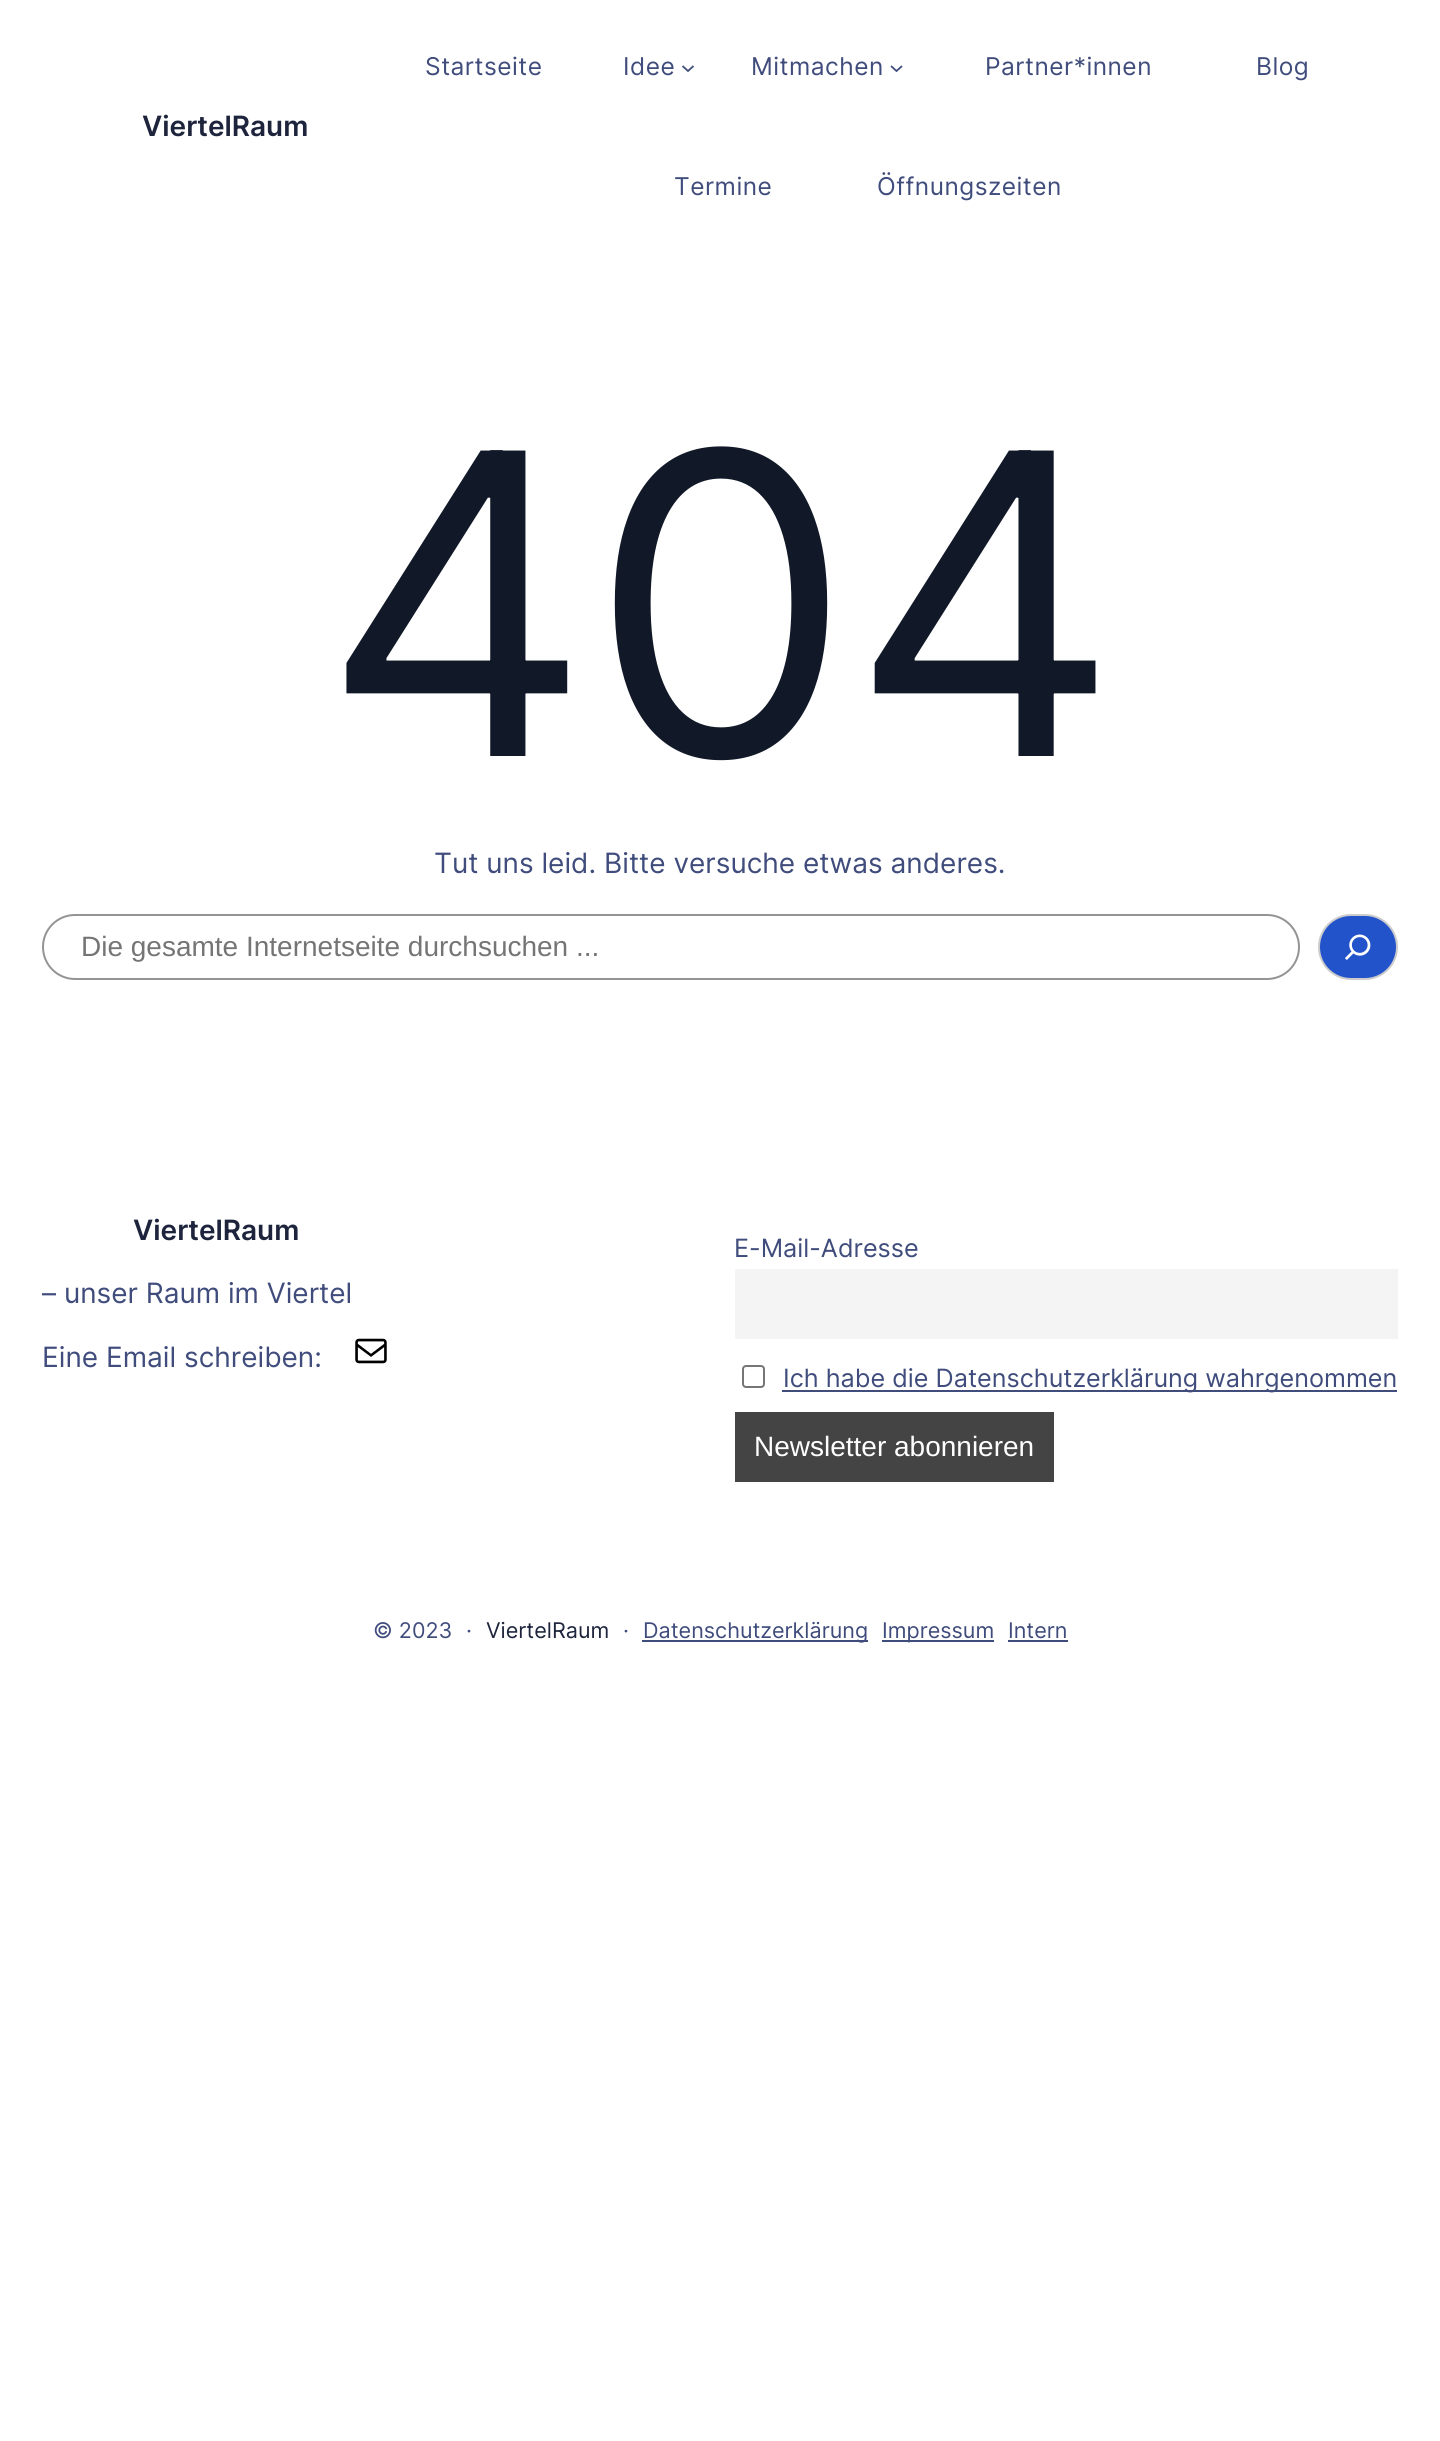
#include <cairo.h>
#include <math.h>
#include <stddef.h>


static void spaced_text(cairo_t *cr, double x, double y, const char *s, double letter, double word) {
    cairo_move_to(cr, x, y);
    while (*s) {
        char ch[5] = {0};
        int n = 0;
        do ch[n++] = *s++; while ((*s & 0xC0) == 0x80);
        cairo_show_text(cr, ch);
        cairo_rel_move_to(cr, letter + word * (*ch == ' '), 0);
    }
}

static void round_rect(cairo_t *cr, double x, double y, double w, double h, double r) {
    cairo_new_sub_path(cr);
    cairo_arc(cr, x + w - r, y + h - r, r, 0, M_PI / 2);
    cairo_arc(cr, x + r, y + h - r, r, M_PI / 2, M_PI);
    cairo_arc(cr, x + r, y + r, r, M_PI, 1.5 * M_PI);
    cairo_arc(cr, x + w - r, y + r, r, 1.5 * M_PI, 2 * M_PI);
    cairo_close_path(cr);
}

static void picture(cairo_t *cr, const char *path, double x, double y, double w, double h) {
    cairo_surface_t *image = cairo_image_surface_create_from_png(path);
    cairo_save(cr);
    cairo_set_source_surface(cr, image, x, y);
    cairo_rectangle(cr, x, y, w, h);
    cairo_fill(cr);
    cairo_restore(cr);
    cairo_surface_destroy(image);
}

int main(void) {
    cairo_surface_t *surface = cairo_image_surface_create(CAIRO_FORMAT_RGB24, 1440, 2441);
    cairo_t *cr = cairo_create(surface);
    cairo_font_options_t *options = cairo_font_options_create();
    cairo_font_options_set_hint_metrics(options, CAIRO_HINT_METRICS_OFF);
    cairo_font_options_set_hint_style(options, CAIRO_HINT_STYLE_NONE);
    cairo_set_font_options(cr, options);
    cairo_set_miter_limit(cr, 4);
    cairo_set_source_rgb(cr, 1, 1, 1);
    cairo_paint(cr);
    cairo_select_font_face(cr, "Inter SemiBold", CAIRO_FONT_SLANT_NORMAL, CAIRO_FONT_WEIGHT_NORMAL);
    cairo_set_font_size(cr, 28);
    cairo_set_source_rgb(cr, 0.114, 0.141, 0.235);
    cairo_move_to(cr, 142, 136);
    cairo_show_text(cr, "ViertelRaum");
    cairo_select_font_face(cr, "Inter", CAIRO_FONT_SLANT_NORMAL, CAIRO_FONT_WEIGHT_NORMAL);
    cairo_set_font_size(cr, 24.5);
    cairo_set_source_rgb(cr, 0.247, 0.298, 0.486);
    spaced_text(cr, 425, 75, "Startseite", 0.5, 0);
    spaced_text(cr, 623, 75, "Idee", 0.5, 0);
    cairo_new_path(cr);
    cairo_move_to(cr, 682.5, 66);
    cairo_line_to(cr, 688, 71);
    cairo_line_to(cr, 693.5, 66);
    cairo_set_line_width(cr, 1.8);
    cairo_stroke(cr);
    spaced_text(cr, 751, 75, "Mitmachen", 0.5, 0);
    cairo_new_path(cr);
    cairo_move_to(cr, 891, 66);
    cairo_line_to(cr, 896.5, 71);
    cairo_line_to(cr, 902, 66);
    cairo_stroke(cr);
    spaced_text(cr, 985, 75, "Partner*innen", 0.5, 0);
    spaced_text(cr, 1256, 75, "Blog", 0.5, 0);
    spaced_text(cr, 674, 195, "Termine", 0.5, 0);
    spaced_text(cr, 877, 195, "Öffnungszeiten", 0.5, 0);
    cairo_set_font_size(cr, 420);
    cairo_set_source_rgb(cr, 0.067, 0.094, 0.153);
    spaced_text(cr, 322, 756, "404", -2, 0);
    cairo_set_font_size(cr, 28);
    cairo_set_source_rgb(cr, 0.247, 0.298, 0.486);
    cairo_move_to(cr, 434, 873);
    cairo_show_text(cr, "Tut uns leid. Bitte versuche etwas anderes.");
    round_rect(cr, 43, 915, 1256, 64, 32);
    cairo_set_source_rgb(cr, 0.58, 0.58, 0.58);
    cairo_set_line_width(cr, 2);
    cairo_stroke(cr);
    cairo_select_font_face(cr, "Liberation Sans", CAIRO_FONT_SLANT_NORMAL, CAIRO_FONT_WEIGHT_NORMAL);
    cairo_set_source_rgb(cr, 0.459, 0.459, 0.459);
    cairo_move_to(cr, 81, 956);
    cairo_show_text(cr, "Die gesamte Internetseite durchsuchen ...");
    cairo_set_source_rgb(cr, 0.133, 0.325, 0.796);
    round_rect(cr, 1319, 915, 78, 64, 32);
    cairo_fill_preserve(cr);
    cairo_set_source_rgb(cr, 0.8, 0.8, 0.8);
    cairo_stroke(cr);
    picture(cr, "img1.png", 1345, 934, 26, 26);
    cairo_select_font_face(cr, "Inter SemiBold", CAIRO_FONT_SLANT_NORMAL, CAIRO_FONT_WEIGHT_NORMAL);
    cairo_set_source_rgb(cr, 0.114, 0.141, 0.235);
    cairo_move_to(cr, 133, 1240);
    cairo_show_text(cr, "ViertelRaum");
    cairo_select_font_face(cr, "Inter", CAIRO_FONT_SLANT_NORMAL, CAIRO_FONT_WEIGHT_NORMAL);
    cairo_set_source_rgb(cr, 0.247, 0.298, 0.486);
    cairo_move_to(cr, 42, 1303);
    cairo_show_text(cr, "– unser Raum im Viertel");
    cairo_move_to(cr, 42, 1367);
    cairo_show_text(cr, "Eine Email schreiben:");
    picture(cr, "img2.png", 355, 1338, 32, 26);
    cairo_set_font_size(cr, 25.2);
    cairo_move_to(cr, 734, 1257);
    cairo_show_text(cr, "E-Mail-Adresse");
    cairo_set_source_rgb(cr, 0.957, 0.957, 0.957);
    cairo_rectangle(cr, 735, 1269, 663, 70);
    cairo_fill(cr);
    round_rect(cr, 743, 1366, 21, 21, 3);
    cairo_set_source_rgb(cr, 0.463, 0.463, 0.463);
    cairo_stroke(cr);
    cairo_set_source_rgb(cr, 0.247, 0.298, 0.486);
    cairo_rectangle(cr, 782, 1390, 615, 2);
    cairo_fill(cr);
    cairo_move_to(cr, 783, 1387);
    cairo_show_text(cr, "Ich habe die Datenschutzerklärung wahrgenommen");
    cairo_set_source_rgb(cr, 0.267, 0.267, 0.267);
    cairo_rectangle(cr, 735, 1412, 319, 70);
    cairo_fill(cr);
    cairo_select_font_face(cr, "Liberation Sans", CAIRO_FONT_SLANT_NORMAL, CAIRO_FONT_WEIGHT_NORMAL);
    cairo_set_font_size(cr, 28);
    cairo_set_source_rgb(cr, 1, 1, 1);
    cairo_move_to(cr, 754, 1456);
    cairo_show_text(cr, "Newsletter abonnieren");
    cairo_select_font_face(cr, "Inter", CAIRO_FONT_SLANT_NORMAL, CAIRO_FONT_WEIGHT_NORMAL);
    cairo_set_font_size(cr, 21.6);
    cairo_set_source_rgb(cr, 0.247, 0.298, 0.486);
    cairo_move_to(cr, 373, 1638);
    cairo_show_text(cr, "© 2023");
    cairo_move_to(cr, 466, 1638);
    cairo_show_text(cr, "·");
    cairo_set_source_rgb(cr, 0.114, 0.141, 0.235);
    cairo_move_to(cr, 486, 1638);
    cairo_show_text(cr, "ViertelRaum");
    cairo_set_source_rgb(cr, 0.247, 0.298, 0.486);
    cairo_move_to(cr, 623, 1638);
    cairo_show_text(cr, "·");
    cairo_rectangle(cr, 642, 1640, 226, 2);
    cairo_fill(cr);
    cairo_move_to(cr, 643, 1638);
    cairo_show_text(cr, "Datenschutzerklärung");
    cairo_rectangle(cr, 882, 1640, 112, 2);
    cairo_fill(cr);
    cairo_move_to(cr, 882, 1638);
    cairo_show_text(cr, "Impressum");
    cairo_move_to(cr, 1008, 1638);
    cairo_show_text(cr, "Intern");
    cairo_rectangle(cr, 1008, 1640, 60, 2);
    cairo_fill(cr);
    cairo_surface_write_to_png(surface, "page.png");
    cairo_font_options_destroy(options);
    cairo_destroy(cr);
    cairo_surface_destroy(surface);
    return 0;
}
